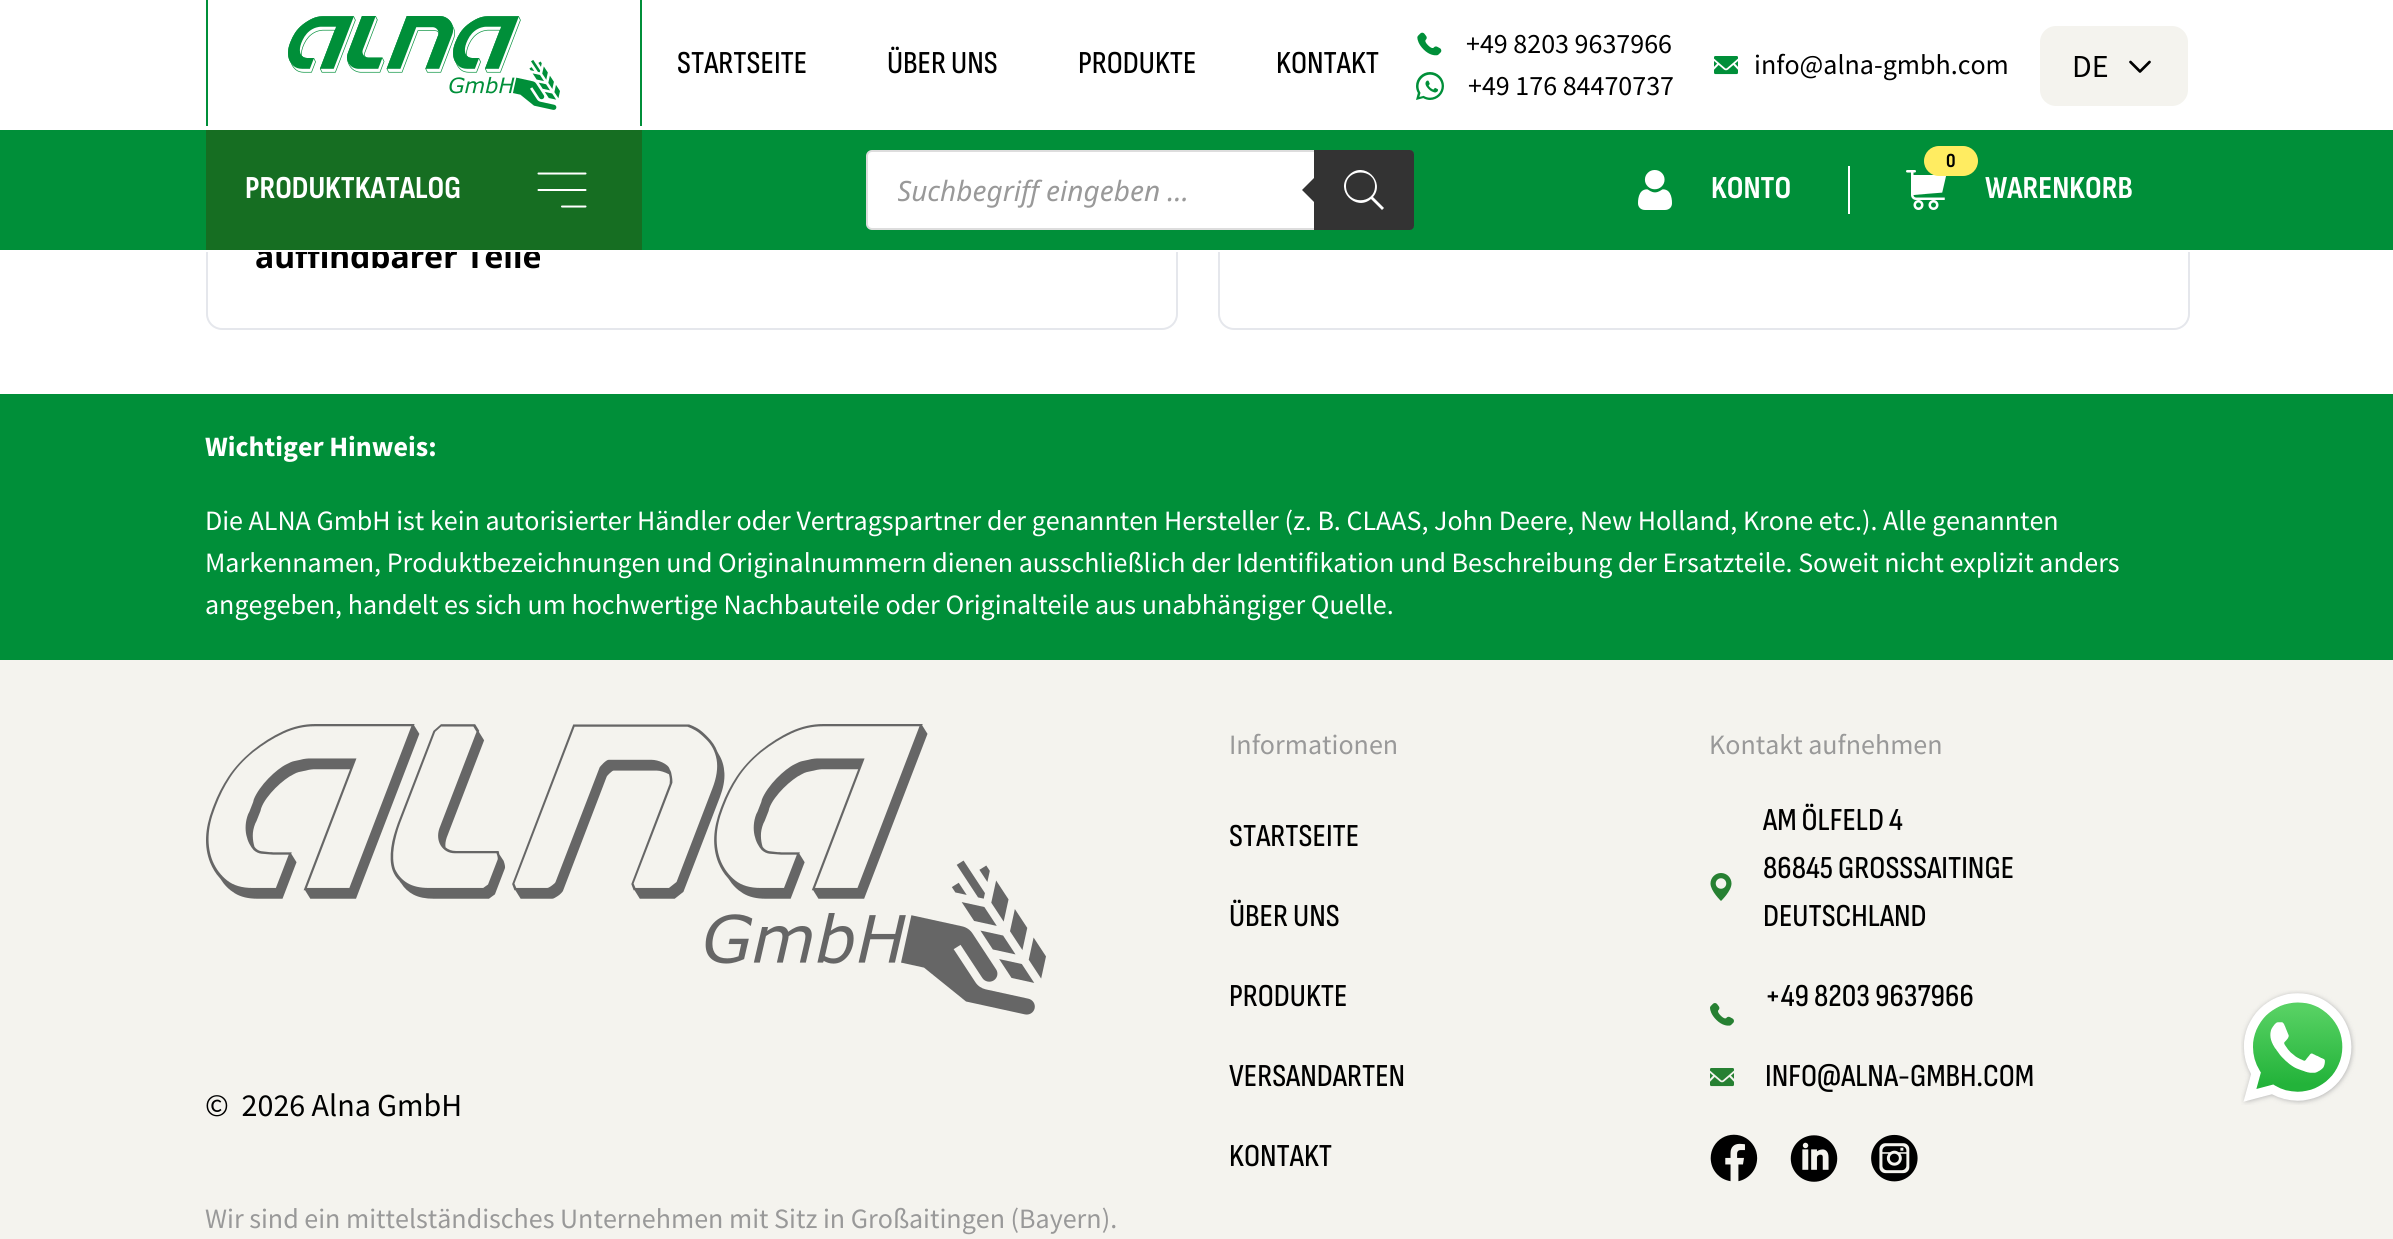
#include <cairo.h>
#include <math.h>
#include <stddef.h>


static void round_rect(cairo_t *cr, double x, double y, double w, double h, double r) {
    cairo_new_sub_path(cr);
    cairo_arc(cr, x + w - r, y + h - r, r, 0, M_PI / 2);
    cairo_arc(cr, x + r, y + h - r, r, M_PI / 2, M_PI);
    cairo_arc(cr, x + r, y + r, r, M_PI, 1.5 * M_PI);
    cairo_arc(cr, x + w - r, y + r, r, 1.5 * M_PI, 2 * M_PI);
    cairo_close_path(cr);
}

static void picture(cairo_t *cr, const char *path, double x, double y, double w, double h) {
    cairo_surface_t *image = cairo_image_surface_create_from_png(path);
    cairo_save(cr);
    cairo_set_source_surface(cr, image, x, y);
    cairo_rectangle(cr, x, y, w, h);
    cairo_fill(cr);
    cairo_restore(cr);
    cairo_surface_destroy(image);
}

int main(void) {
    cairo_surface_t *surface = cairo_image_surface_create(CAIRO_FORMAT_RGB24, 2393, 1239);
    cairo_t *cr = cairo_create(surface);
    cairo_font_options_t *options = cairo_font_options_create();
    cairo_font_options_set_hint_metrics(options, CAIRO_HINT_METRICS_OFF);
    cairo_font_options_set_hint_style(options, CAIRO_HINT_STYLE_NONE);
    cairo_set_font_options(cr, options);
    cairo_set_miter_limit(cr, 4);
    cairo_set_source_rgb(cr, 1, 1, 1);
    cairo_paint(cr);
    round_rect(cr, 207, 135, 970, 194, 15);
    cairo_set_source_rgb(cr, 0.898, 0.906, 0.922);
    cairo_stroke(cr);
    cairo_select_font_face(cr, "Noto Sans", CAIRO_FONT_SLANT_NORMAL, CAIRO_FONT_WEIGHT_BOLD);
    cairo_set_font_size(cr, 32);
    cairo_set_source_rgb(cr, 0, 0, 0);
    cairo_move_to(cr, 255, 268);
    cairo_show_text(cr, "auffindbarer Teile");
    round_rect(cr, 1219, 135, 970, 194, 15);
    cairo_set_source_rgb(cr, 0.898, 0.906, 0.922);
    cairo_stroke(cr);
    cairo_set_source_rgb(cr, 1, 1, 1);
    cairo_rectangle(cr, 206, 134, 1984, 118);
    cairo_fill(cr);
    cairo_set_source_rgb(cr, 0, 0.561, 0.224);
    cairo_rectangle(cr, 640, 0, 2, 126);
    cairo_fill(cr);
    cairo_rectangle(cr, 206, 0, 2, 126);
    cairo_fill(cr);
    picture(cr, "img1.png", 288, 16, 272, 94);
    cairo_select_font_face(cr, "Sofia Sans Condensed Medium", CAIRO_FONT_SLANT_NORMAL, CAIRO_FONT_WEIGHT_NORMAL);
    cairo_set_source_rgb(cr, 0, 0, 0);
    cairo_move_to(cr, 677, 73);
    cairo_show_text(cr, "STARTSEITE");
    cairo_move_to(cr, 887, 73);
    cairo_show_text(cr, "ÜBER UNS");
    cairo_move_to(cr, 1078, 73);
    cairo_show_text(cr, "PRODUKTE");
    cairo_move_to(cr, 1276, 73);
    cairo_show_text(cr, "KONTAKT");
    picture(cr, "img2.png", 1417, 32, 25, 24);
    cairo_select_font_face(cr, "Source Sans Pro", CAIRO_FONT_SLANT_NORMAL, CAIRO_FONT_WEIGHT_NORMAL);
    cairo_set_font_size(cr, 28);
    cairo_move_to(cr, 1466, 53);
    cairo_show_text(cr, "+49 8203 9637966");
    picture(cr, "img3.png", 1416, 72, 28, 28);
    cairo_move_to(cr, 1468, 95);
    cairo_show_text(cr, "+49 176 84470737");
    picture(cr, "img4.png", 1714, 56, 24, 19);
    cairo_move_to(cr, 1754, 74);
    cairo_show_text(cr, "info@alna-gmbh.com");
    cairo_set_source_rgb(cr, 0.957, 0.953, 0.933);
    round_rect(cr, 2040, 26, 148, 80, 16);
    cairo_fill(cr);
    cairo_set_font_size(cr, 32);
    cairo_set_source_rgb(cr, 0, 0, 0);
    cairo_move_to(cr, 2072, 77);
    cairo_show_text(cr, "DE");
    cairo_new_path(cr);
    cairo_move_to(cr, 2149.5, 62);
    cairo_line_to(cr, 2140, 71.5);
    cairo_line_to(cr, 2130.5, 62);
    cairo_set_line_width(cr, 2.7);
    cairo_set_line_cap(cr, CAIRO_LINE_CAP_ROUND);
    cairo_set_line_join(cr, CAIRO_LINE_JOIN_ROUND);
    cairo_stroke(cr);
    cairo_set_source_rgb(cr, 0, 0.561, 0.224);
    cairo_rectangle(cr, 0, 130, 2393, 120);
    cairo_fill(cr);
    cairo_set_source_rgb(cr, 0.086, 0.431, 0.133);
    cairo_rectangle(cr, 206, 130, 436, 120);
    cairo_fill(cr);
    cairo_select_font_face(cr, "Sofia Sans Condensed", CAIRO_FONT_SLANT_NORMAL, CAIRO_FONT_WEIGHT_BOLD);
    cairo_set_source_rgb(cr, 1, 1, 1);
    cairo_move_to(cr, 245, 198);
    cairo_show_text(cr, "PRODUKTKATALOG");
    cairo_new_path(cr);
    cairo_move_to(cr, 562, 206.5);
    cairo_line_to(cr, 585.5, 206.5);
    cairo_move_to(cr, 538.5, 190);
    cairo_line_to(cr, 585.5, 190);
    cairo_move_to(cr, 538.5, 173.5);
    cairo_line_to(cr, 585.5, 173.5);
    cairo_set_line_width(cr, 2);
    cairo_stroke(cr);
    round_rect(cr, 867, 151, 546, 78, 5);
    cairo_fill_preserve(cr);
    cairo_set_source_rgb(cr, 0.867, 0.867, 0.867);
    cairo_set_line_cap(cr, CAIRO_LINE_CAP_BUTT);
    cairo_set_line_join(cr, CAIRO_LINE_JOIN_MITER);
    cairo_stroke(cr);
    cairo_save(cr);
    cairo_rectangle(cr, 898, 172, 484, 38);
    cairo_clip(cr);
    cairo_select_font_face(cr, "Noto Sans", CAIRO_FONT_SLANT_ITALIC, CAIRO_FONT_WEIGHT_NORMAL);
    cairo_set_font_size(cr, 28);
    cairo_set_source_rgb(cr, 0.6, 0.6, 0.6);
    cairo_move_to(cr, 897, 201);
    cairo_show_text(cr, "Suchbegriff eingeben ...");
    cairo_restore(cr);
    cairo_set_source_rgb(cr, 0.2, 0.2, 0.2);
    cairo_new_path(cr);
    cairo_move_to(cr, 1314, 150);
    cairo_line_to(cr, 1410, 150);
    cairo_curve_to(cr, 1412, 150, 1414, 152, 1414, 154);
    cairo_line_to(cr, 1414, 226);
    cairo_curve_to(cr, 1414, 228, 1412, 230, 1410, 230);
    cairo_line_to(cr, 1314, 230);
    cairo_close_path(cr);
    cairo_fill(cr);
    cairo_new_path(cr);
    cairo_move_to(cr, 1318, 174);
    cairo_line_to(cr, 1318, 206);
    cairo_line_to(cr, 1302, 190);
    cairo_close_path(cr);
    cairo_fill(cr);
    cairo_set_source_rgb(cr, 1, 1, 1);
    cairo_new_path(cr);
    cairo_move_to(cr, 1384, 208);
    cairo_line_to(cr, 1373, 197);
    cairo_curve_to(cr, 1386, 182, 1364, 160, 1349, 175);
    cairo_curve_to(cr, 1334, 190, 1356, 212, 1371, 199);
    cairo_line_to(cr, 1382, 210);
    cairo_close_path(cr);
    cairo_move_to(cr, 1346, 186);
    cairo_curve_to(cr, 1346, 168, 1375, 168, 1375, 186);
    cairo_curve_to(cr, 1375, 205, 1346, 205, 1346, 186);
    cairo_close_path(cr);
    cairo_fill(cr);
    picture(cr, "img5.png", 1638, 170, 34, 40);
    cairo_move_to(cr, 1711, 198);
    cairo_show_text(cr, "KONTO");
    cairo_rectangle(cr, 1848, 166, 2, 48);
    cairo_fill(cr);
    picture(cr, "img6.png", 1906, 170, 40, 40);
    cairo_set_source_rgb(cr, 1, 0.925, 0.38);
    round_rect(cr, 1924, 146, 54, 30, 15);
    cairo_fill(cr);
    cairo_set_font_size(cr, 20);
    cairo_set_source_rgb(cr, 0, 0, 0);
    cairo_move_to(cr, 1946, 167);
    cairo_show_text(cr, "0");
    cairo_set_font_size(cr, 32);
    cairo_set_source_rgb(cr, 1, 1, 1);
    cairo_move_to(cr, 1985, 198);
    cairo_show_text(cr, "WARENKORB");
    cairo_set_source_rgb(cr, 0, 0.561, 0.224);
    cairo_rectangle(cr, 0, 394, 2393, 266);
    cairo_fill(cr);
    cairo_select_font_face(cr, "Source Sans Pro", CAIRO_FONT_SLANT_NORMAL, CAIRO_FONT_WEIGHT_BOLD);
    cairo_set_font_size(cr, 28);
    cairo_set_source_rgb(cr, 1, 1, 1);
    cairo_move_to(cr, 205, 456);
    cairo_show_text(cr, "Wichtiger Hinweis:");
    cairo_select_font_face(cr, "Source Sans Pro", CAIRO_FONT_SLANT_NORMAL, CAIRO_FONT_WEIGHT_NORMAL);
    cairo_move_to(cr, 205, 530);
    cairo_show_text(cr, "Die ALNA GmbH ist kein autorisierter Händler oder Vertragspartner der genannten Hersteller (z. B. CLAAS, John Deere, New Holland, Krone etc.). Alle genannten");
    cairo_move_to(cr, 205, 572);
    cairo_show_text(cr, "Markennamen, Produktbezeichnungen und Originalnummern dienen ausschließlich der Identifikation und Beschreibung der Ersatzteile. Soweit nicht explizit anders");
    cairo_move_to(cr, 205, 614);
    cairo_show_text(cr, "angegeben, handelt es sich um hochwertige Nachbauteile oder Originalteile aus unabhängiger Quelle.");
    cairo_set_source_rgb(cr, 0.957, 0.953, 0.933);
    cairo_rectangle(cr, 0, 660, 2393, 579);
    cairo_fill(cr);
    picture(cr, "img7.png", 206, 724, 840, 291);
    cairo_set_font_size(cr, 32);
    cairo_set_source_rgb(cr, 0, 0, 0);
    cairo_move_to(cr, 205, 1116);
    cairo_show_text(cr, "©  2026 Alna GmbH");
    cairo_set_font_size(cr, 28);
    cairo_set_source_rgb(cr, 0.6, 0.6, 0.6);
    cairo_move_to(cr, 1229, 754);
    cairo_show_text(cr, "Informationen");
    cairo_select_font_face(cr, "Sofia Sans Condensed Medium", CAIRO_FONT_SLANT_NORMAL, CAIRO_FONT_WEIGHT_NORMAL);
    cairo_set_font_size(cr, 32);
    cairo_set_source_rgb(cr, 0, 0, 0);
    cairo_move_to(cr, 1229, 846);
    cairo_show_text(cr, "STARTSEITE");
    cairo_move_to(cr, 1229, 926);
    cairo_show_text(cr, "ÜBER UNS");
    cairo_move_to(cr, 1229, 1006);
    cairo_show_text(cr, "PRODUKTE");
    cairo_move_to(cr, 1229, 1086);
    cairo_show_text(cr, "VERSANDARTEN");
    cairo_move_to(cr, 1229, 1166);
    cairo_show_text(cr, "KONTAKT");
    cairo_select_font_face(cr, "Source Sans Pro", CAIRO_FONT_SLANT_NORMAL, CAIRO_FONT_WEIGHT_NORMAL);
    cairo_set_font_size(cr, 28);
    cairo_set_source_rgb(cr, 0.6, 0.6, 0.6);
    cairo_move_to(cr, 1709, 754);
    cairo_show_text(cr, "Kontakt aufnehmen");
    picture(cr, "img8.png", 1710, 873, 22, 28);
    cairo_select_font_face(cr, "Sofia Sans Condensed Medium", CAIRO_FONT_SLANT_NORMAL, CAIRO_FONT_WEIGHT_NORMAL);
    cairo_set_font_size(cr, 32);
    cairo_set_source_rgb(cr, 0, 0, 0);
    cairo_move_to(cr, 1763, 830);
    cairo_show_text(cr, "AM ÖLFELD 4");
    cairo_move_to(cr, 1763, 878);
    cairo_show_text(cr, "86845 GROSSSAITINGE");
    cairo_move_to(cr, 1763, 926);
    cairo_show_text(cr, "DEUTSCHLAND");
    cairo_move_to(cr, 1765, 1006);
    cairo_show_text(cr, "+49 8203 9637966");
    picture(cr, "img9.png", 1710, 1003, 24, 23);
    picture(cr, "img10.png", 1710, 1068, 24, 19);
    cairo_move_to(cr, 1765, 1086);
    cairo_show_text(cr, "INFO@ALNA-GMBH.COM");
    picture(cr, "img11.png", 1710, 1134, 48, 48);
    picture(cr, "img12.png", 1790, 1135, 48, 47);
    picture(cr, "img13.png", 1871, 1134, 47, 48);
    cairo_select_font_face(cr, "Source Sans Pro", CAIRO_FONT_SLANT_NORMAL, CAIRO_FONT_WEIGHT_NORMAL);
    cairo_set_font_size(cr, 28);
    cairo_set_source_rgb(cr, 0.6, 0.6, 0.6);
    cairo_move_to(cr, 205, 1228);
    cairo_show_text(cr, "Wir sind ein mittelständisches Unternehmen mit Sitz in Großaitingen (Bayern).");
    picture(cr, "img14.png", 2241, 990, 115, 115);
    cairo_surface_write_to_png(surface, "page.png");
    cairo_font_options_destroy(options);
    cairo_destroy(cr);
    cairo_surface_destroy(surface);
    return 0;
}
